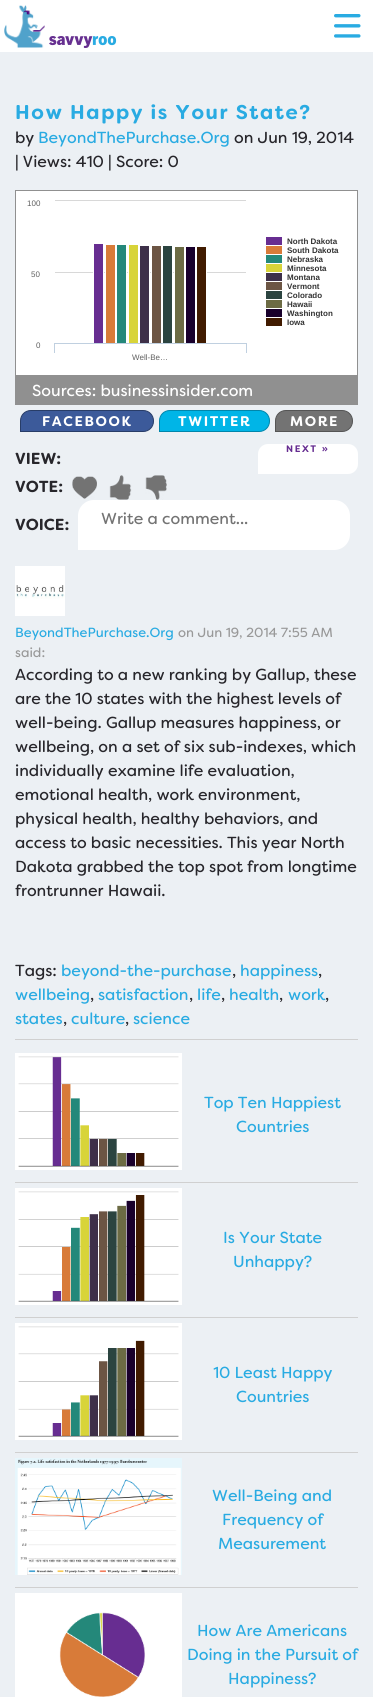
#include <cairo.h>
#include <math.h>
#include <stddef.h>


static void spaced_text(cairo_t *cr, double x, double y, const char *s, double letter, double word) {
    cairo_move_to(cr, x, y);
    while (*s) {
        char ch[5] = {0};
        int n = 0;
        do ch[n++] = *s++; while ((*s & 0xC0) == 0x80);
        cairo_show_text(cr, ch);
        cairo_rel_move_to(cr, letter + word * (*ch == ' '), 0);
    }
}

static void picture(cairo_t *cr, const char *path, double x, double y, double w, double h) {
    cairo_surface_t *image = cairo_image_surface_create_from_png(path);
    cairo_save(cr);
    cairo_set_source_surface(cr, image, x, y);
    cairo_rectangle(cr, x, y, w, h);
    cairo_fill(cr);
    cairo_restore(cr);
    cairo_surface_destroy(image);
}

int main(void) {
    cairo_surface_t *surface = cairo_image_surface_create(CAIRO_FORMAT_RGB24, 373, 1697);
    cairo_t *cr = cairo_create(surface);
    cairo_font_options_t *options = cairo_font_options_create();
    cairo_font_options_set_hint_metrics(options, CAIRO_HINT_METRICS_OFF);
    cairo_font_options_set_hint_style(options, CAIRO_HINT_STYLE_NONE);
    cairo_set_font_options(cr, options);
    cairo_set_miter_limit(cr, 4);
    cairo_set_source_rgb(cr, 0.922, 0.941, 0.957);
    cairo_paint(cr);
    cairo_set_source_rgb(cr, 1, 1, 1);
    cairo_rectangle(cr, 0, 0, 373, 52);
    cairo_fill(cr);
    picture(cr, "img1.png", 4, 5, 41, 43);
    picture(cr, "img2.png", 49, 36, 68, 12);
    picture(cr, "img3.png", 334, 14, 27, 24);
    cairo_select_font_face(cr, "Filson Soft", CAIRO_FONT_SLANT_NORMAL, CAIRO_FONT_WEIGHT_BOLD);
    cairo_set_font_size(cr, 20);
    cairo_set_source_rgb(cr, 0.161, 0.671, 0.886);
    spaced_text(cr, 15, 119, "How Happy is Your State?", 1.6, 0);
    cairo_select_font_face(cr, "Filson Soft", CAIRO_FONT_SLANT_NORMAL, CAIRO_FONT_WEIGHT_NORMAL);
    cairo_set_font_size(cr, 16);
    cairo_set_source_rgb(cr, 0.153, 0.149, 0.169);
    cairo_move_to(cr, 15, 143);
    cairo_show_text(cr, "by");
    cairo_set_source_rgb(cr, 0.161, 0.671, 0.886);
    cairo_move_to(cr, 38, 143);
    cairo_show_text(cr, "BeyondThePurchase.Org");
    cairo_set_source_rgb(cr, 0.153, 0.149, 0.169);
    cairo_move_to(cr, 234, 143);
    cairo_show_text(cr, "on Jun 19, 2014");
    cairo_move_to(cr, 15, 167);
    cairo_show_text(cr, "| Views: 410 | Score: 0");
    cairo_rectangle(cr, 15.5, 190.5, 342, 185);
    cairo_set_source_rgb(cr, 0.565, 0.565, 0.565);
    cairo_set_line_width(cr, 1);
    cairo_stroke(cr);
    picture(cr, "img4.png", 16, 191, 341, 184);
    cairo_select_font_face(cr, "Liberation Sans", CAIRO_FONT_SLANT_NORMAL, CAIRO_FONT_WEIGHT_NORMAL);
    cairo_set_font_size(cr, 8);
    cairo_set_source_rgb(cr, 0.376, 0.376, 0.376);
    cairo_move_to(cr, 27, 206);
    cairo_show_text(cr, "100");
    cairo_select_font_face(cr, "Liberation Sans", CAIRO_FONT_SLANT_NORMAL, CAIRO_FONT_WEIGHT_BOLD);
    cairo_set_source_rgb(cr, 0.2, 0.2, 0.2);
    cairo_move_to(cr, 287, 244);
    cairo_show_text(cr, "North Dakota");
    cairo_move_to(cr, 287, 253);
    cairo_show_text(cr, "South Dakota");
    cairo_move_to(cr, 287, 262);
    cairo_show_text(cr, "Nebraska");
    cairo_move_to(cr, 287, 271);
    cairo_show_text(cr, "Minnesota");
    cairo_select_font_face(cr, "Liberation Sans", CAIRO_FONT_SLANT_NORMAL, CAIRO_FONT_WEIGHT_NORMAL);
    cairo_set_source_rgb(cr, 0.376, 0.376, 0.376);
    cairo_move_to(cr, 31, 277);
    cairo_show_text(cr, "50");
    cairo_select_font_face(cr, "Liberation Sans", CAIRO_FONT_SLANT_NORMAL, CAIRO_FONT_WEIGHT_BOLD);
    cairo_set_source_rgb(cr, 0.2, 0.2, 0.2);
    cairo_move_to(cr, 287, 280);
    cairo_show_text(cr, "Montana");
    cairo_move_to(cr, 287, 289);
    cairo_show_text(cr, "Vermont");
    cairo_move_to(cr, 287, 298);
    cairo_show_text(cr, "Colorado");
    cairo_move_to(cr, 287, 307);
    cairo_show_text(cr, "Hawaii");
    cairo_move_to(cr, 287, 316);
    cairo_show_text(cr, "Washington");
    cairo_move_to(cr, 287, 325);
    cairo_show_text(cr, "Iowa");
    cairo_select_font_face(cr, "Liberation Sans", CAIRO_FONT_SLANT_NORMAL, CAIRO_FONT_WEIGHT_NORMAL);
    cairo_set_source_rgb(cr, 0.376, 0.376, 0.376);
    cairo_move_to(cr, 36, 348);
    cairo_show_text(cr, "0");
    cairo_move_to(cr, 132, 360);
    cairo_show_text(cr, "Well-Be…");
    cairo_set_source_rgb(cr, 0.565, 0.565, 0.565);
    cairo_rectangle(cr, 15, 376, 343, 29);
    cairo_fill(cr);
    cairo_select_font_face(cr, "Filson Soft", CAIRO_FONT_SLANT_NORMAL, CAIRO_FONT_WEIGHT_NORMAL);
    cairo_set_font_size(cr, 16);
    cairo_set_source_rgb(cr, 1, 1, 1);
    cairo_move_to(cr, 32, 396);
    cairo_show_text(cr, "Sources: businessinsider.com");
    cairo_set_source_rgb(cr, 0.235, 0.353, 0.604);
    cairo_new_path(cr);
    cairo_move_to(cr, 31, 410.5);
    cairo_line_to(cr, 143, 410.5);
    cairo_curve_to(cr, 149, 410.5, 153.5, 415, 153.5, 421);
    cairo_curve_to(cr, 153.5, 427, 149, 431.5, 143, 431.5);
    cairo_line_to(cr, 20.5, 431.5);
    cairo_line_to(cr, 20.5, 421);
    cairo_curve_to(cr, 20.5, 415, 25, 410.5, 31, 410.5);
    cairo_close_path(cr);
    cairo_fill_preserve(cr);
    cairo_set_source_rgb(cr, 0.157, 0.239, 0.408);
    cairo_stroke(cr);
    cairo_select_font_face(cr, "Filson Soft", CAIRO_FONT_SLANT_NORMAL, CAIRO_FONT_WEIGHT_BOLD);
    cairo_set_font_size(cr, 14);
    cairo_set_source_rgb(cr, 1, 1, 1);
    spaced_text(cr, 42, 426, "FACEBOOK", 1.6, 0);
    cairo_set_source_rgb(cr, 0, 0.71, 0.906);
    cairo_new_path(cr);
    cairo_move_to(cr, 170, 410.5);
    cairo_line_to(cr, 259, 410.5);
    cairo_curve_to(cr, 265, 410.5, 269.5, 415, 269.5, 421);
    cairo_curve_to(cr, 269.5, 427, 265, 431.5, 259, 431.5);
    cairo_line_to(cr, 159.5, 431.5);
    cairo_line_to(cr, 159.5, 421);
    cairo_curve_to(cr, 159.5, 415, 164, 410.5, 170, 410.5);
    cairo_close_path(cr);
    cairo_fill_preserve(cr);
    cairo_set_source_rgb(cr, 0, 0.525, 0.671);
    cairo_stroke(cr);
    cairo_set_source_rgb(cr, 1, 1, 1);
    spaced_text(cr, 178, 426, "TWITTER", 1.6, 0);
    cairo_set_source_rgb(cr, 0.451, 0.451, 0.451);
    cairo_new_path(cr);
    cairo_move_to(cr, 286, 410.5);
    cairo_line_to(cr, 342, 410.5);
    cairo_curve_to(cr, 348, 410.5, 352.5, 415, 352.5, 421);
    cairo_curve_to(cr, 352.5, 427, 348, 431.5, 342, 431.5);
    cairo_line_to(cr, 275.5, 431.5);
    cairo_line_to(cr, 275.5, 421);
    cairo_curve_to(cr, 275.5, 415, 280, 410.5, 286, 410.5);
    cairo_close_path(cr);
    cairo_fill_preserve(cr);
    cairo_set_source_rgb(cr, 0.333, 0.333, 0.333);
    cairo_stroke(cr);
    cairo_set_source_rgb(cr, 1, 1, 1);
    spaced_text(cr, 290, 426, "MORE", 1.6, 0);
    cairo_new_path(cr);
    cairo_move_to(cr, 268, 444);
    cairo_line_to(cr, 348, 444);
    cairo_curve_to(cr, 353.5, 444, 358, 448.5, 358, 454);
    cairo_line_to(cr, 358, 464);
    cairo_curve_to(cr, 358, 469.5, 353.5, 474, 348, 474);
    cairo_line_to(cr, 258, 474);
    cairo_line_to(cr, 258, 454);
    cairo_curve_to(cr, 258, 448.5, 262.5, 444, 268, 444);
    cairo_close_path(cr);
    cairo_fill(cr);
    cairo_set_font_size(cr, 9.5);
    cairo_set_source_rgb(cr, 0.4, 0.176, 0.569);
    spaced_text(cr, 286, 452, "NEXT »", 1.6, 0);
    cairo_set_font_size(cr, 16);
    cairo_set_source_rgb(cr, 0.153, 0.149, 0.169);
    cairo_move_to(cr, 15, 464);
    cairo_show_text(cr, "VIEW:");
    cairo_move_to(cr, 15, 492);
    cairo_show_text(cr, "VOTE:");
    picture(cr, "img5.png", 72, 476, 25, 23);
    picture(cr, "img6.png", 109, 475, 23, 25);
    picture(cr, "img7.png", 145, 475, 22, 25);
    cairo_move_to(cr, 15, 530);
    cairo_show_text(cr, "VOICE:");
    cairo_set_source_rgb(cr, 1, 1, 1);
    cairo_new_path(cr);
    cairo_move_to(cr, 94, 500);
    cairo_line_to(cr, 334, 500);
    cairo_curve_to(cr, 343, 500, 350, 507, 350, 516);
    cairo_line_to(cr, 350, 534);
    cairo_curve_to(cr, 350, 543, 343, 550, 334, 550);
    cairo_line_to(cr, 78, 550);
    cairo_line_to(cr, 78, 516);
    cairo_curve_to(cr, 78, 507, 85, 500, 94, 500);
    cairo_close_path(cr);
    cairo_fill(cr);
    cairo_select_font_face(cr, "Filson Soft", CAIRO_FONT_SLANT_NORMAL, CAIRO_FONT_WEIGHT_NORMAL);
    cairo_set_source_rgb(cr, 0.451, 0.451, 0.451);
    cairo_move_to(cr, 101, 524);
    cairo_show_text(cr, "Write a comment...");
    picture(cr, "img8.png", 15, 566, 50, 50);
    cairo_set_font_size(cr, 13.25);
    cairo_set_source_rgb(cr, 0.161, 0.671, 0.886);
    cairo_move_to(cr, 15, 637);
    cairo_show_text(cr, "BeyondThePurchase.Org");
    cairo_set_source_rgb(cr, 0.6, 0.6, 0.6);
    cairo_move_to(cr, 178, 637);
    cairo_show_text(cr, "on Jun 19, 2014 7:55 AM");
    cairo_move_to(cr, 15, 657);
    cairo_show_text(cr, "said:");
    cairo_set_font_size(cr, 16);
    cairo_set_source_rgb(cr, 0.153, 0.149, 0.169);
    cairo_move_to(cr, 15, 680);
    cairo_show_text(cr, "According to a new ranking by Gallup, these");
    cairo_move_to(cr, 15, 704);
    cairo_show_text(cr, "are the 10 states with the highest levels of");
    cairo_move_to(cr, 15, 728);
    cairo_show_text(cr, "well-being. Gallup measures happiness, or");
    cairo_move_to(cr, 15, 752);
    cairo_show_text(cr, "wellbeing, on a set of six sub-indexes, which");
    cairo_move_to(cr, 15, 776);
    cairo_show_text(cr, "individually examine life evaluation,");
    cairo_move_to(cr, 15, 800);
    cairo_show_text(cr, "emotional health, work environment,");
    cairo_move_to(cr, 15, 824);
    cairo_show_text(cr, "physical health, healthy behaviors, and");
    cairo_move_to(cr, 15, 848);
    cairo_show_text(cr, "access to basic necessities. This year North");
    cairo_move_to(cr, 15, 872);
    cairo_show_text(cr, "Dakota grabbed the top spot from longtime");
    cairo_move_to(cr, 15, 896);
    cairo_show_text(cr, "frontrunner Hawaii.");
    cairo_move_to(cr, 15, 976);
    cairo_show_text(cr, "Tags:");
    cairo_set_source_rgb(cr, 0.161, 0.671, 0.886);
    cairo_move_to(cr, 61, 976);
    cairo_show_text(cr, "beyond-the-purchase");
    cairo_set_source_rgb(cr, 0.153, 0.149, 0.169);
    cairo_move_to(cr, 232, 976);
    cairo_show_text(cr, ",");
    cairo_set_source_rgb(cr, 0.161, 0.671, 0.886);
    cairo_move_to(cr, 240, 976);
    cairo_show_text(cr, "happiness");
    cairo_set_source_rgb(cr, 0.153, 0.149, 0.169);
    cairo_move_to(cr, 318, 976);
    cairo_show_text(cr, ",");
    cairo_set_source_rgb(cr, 0.161, 0.671, 0.886);
    cairo_move_to(cr, 15, 1000);
    cairo_show_text(cr, "wellbeing");
    cairo_set_source_rgb(cr, 0.153, 0.149, 0.169);
    cairo_move_to(cr, 90, 1000);
    cairo_show_text(cr, ",");
    cairo_set_source_rgb(cr, 0.161, 0.671, 0.886);
    cairo_move_to(cr, 98, 1000);
    cairo_show_text(cr, "satisfaction");
    cairo_set_source_rgb(cr, 0.153, 0.149, 0.169);
    cairo_move_to(cr, 189, 1000);
    cairo_show_text(cr, ",");
    cairo_set_source_rgb(cr, 0.161, 0.671, 0.886);
    cairo_move_to(cr, 197, 1000);
    cairo_show_text(cr, "life");
    cairo_set_source_rgb(cr, 0.153, 0.149, 0.169);
    cairo_move_to(cr, 221, 1000);
    cairo_show_text(cr, ",");
    cairo_set_source_rgb(cr, 0.161, 0.671, 0.886);
    cairo_move_to(cr, 229, 1000);
    cairo_show_text(cr, "health");
    cairo_set_source_rgb(cr, 0.153, 0.149, 0.169);
    cairo_move_to(cr, 279, 1000);
    cairo_show_text(cr, ",");
    cairo_set_source_rgb(cr, 0.161, 0.671, 0.886);
    cairo_move_to(cr, 288, 1000);
    cairo_show_text(cr, "work");
    cairo_set_source_rgb(cr, 0.153, 0.149, 0.169);
    cairo_move_to(cr, 325, 1000);
    cairo_show_text(cr, ",");
    cairo_set_source_rgb(cr, 0.161, 0.671, 0.886);
    cairo_move_to(cr, 15, 1024);
    cairo_show_text(cr, "states");
    cairo_set_source_rgb(cr, 0.153, 0.149, 0.169);
    cairo_move_to(cr, 63, 1024);
    cairo_show_text(cr, ",");
    cairo_set_source_rgb(cr, 0.161, 0.671, 0.886);
    cairo_move_to(cr, 71, 1024);
    cairo_show_text(cr, "culture");
    cairo_set_source_rgb(cr, 0.153, 0.149, 0.169);
    cairo_move_to(cr, 125, 1024);
    cairo_show_text(cr, ",");
    cairo_set_source_rgb(cr, 0.161, 0.671, 0.886);
    cairo_move_to(cr, 133, 1024);
    cairo_show_text(cr, "science");
    cairo_set_source_rgb(cr, 0.816, 0.816, 0.816);
    cairo_rectangle(cr, 15, 1039, 343, 1);
    cairo_fill(cr);
    cairo_rectangle(cr, 15, 1182, 343, 1);
    cairo_fill(cr);
    picture(cr, "img9.png", 15, 1053, 167, 117);
    cairo_set_source_rgb(cr, 0.161, 0.671, 0.886);
    cairo_move_to(cr, 204, 1108);
    cairo_show_text(cr, "Top Ten Happiest");
    cairo_move_to(cr, 236, 1132);
    cairo_show_text(cr, "Countries");
    cairo_set_source_rgb(cr, 0.816, 0.816, 0.816);
    cairo_rectangle(cr, 15, 1317, 343, 1);
    cairo_fill(cr);
    picture(cr, "img10.png", 15, 1188, 167, 117);
    cairo_set_source_rgb(cr, 0.161, 0.671, 0.886);
    cairo_move_to(cr, 223, 1243);
    cairo_show_text(cr, "Is Your State");
    cairo_move_to(cr, 233, 1267);
    cairo_show_text(cr, "Unhappy?");
    cairo_set_source_rgb(cr, 0.816, 0.816, 0.816);
    cairo_rectangle(cr, 15, 1452, 343, 1);
    cairo_fill(cr);
    picture(cr, "img11.png", 15, 1323, 167, 117);
    cairo_set_source_rgb(cr, 0.161, 0.671, 0.886);
    cairo_move_to(cr, 213, 1378);
    cairo_show_text(cr, "10 Least Happy");
    cairo_move_to(cr, 236, 1402);
    cairo_show_text(cr, "Countries");
    cairo_set_source_rgb(cr, 0.816, 0.816, 0.816);
    cairo_rectangle(cr, 15, 1587, 343, 1);
    cairo_fill(cr);
    picture(cr, "img12.png", 15, 1458, 167, 117);
    cairo_set_source_rgb(cr, 0.161, 0.671, 0.886);
    cairo_move_to(cr, 212, 1501);
    cairo_show_text(cr, "Well-Being and");
    cairo_move_to(cr, 222, 1525);
    cairo_show_text(cr, "Frequency of");
    cairo_move_to(cr, 218, 1549);
    cairo_show_text(cr, "Measurement");
    picture(cr, "img13.png", 15, 1593, 167, 104);
    cairo_move_to(cr, 197, 1636);
    cairo_show_text(cr, "How Are Americans");
    cairo_move_to(cr, 187, 1660);
    cairo_show_text(cr, "Doing in the Pursuit of");
    cairo_move_to(cr, 228, 1684);
    cairo_show_text(cr, "Happiness?");
    cairo_surface_write_to_png(surface, "page.png");
    cairo_font_options_destroy(options);
    cairo_destroy(cr);
    cairo_surface_destroy(surface);
    return 0;
}
